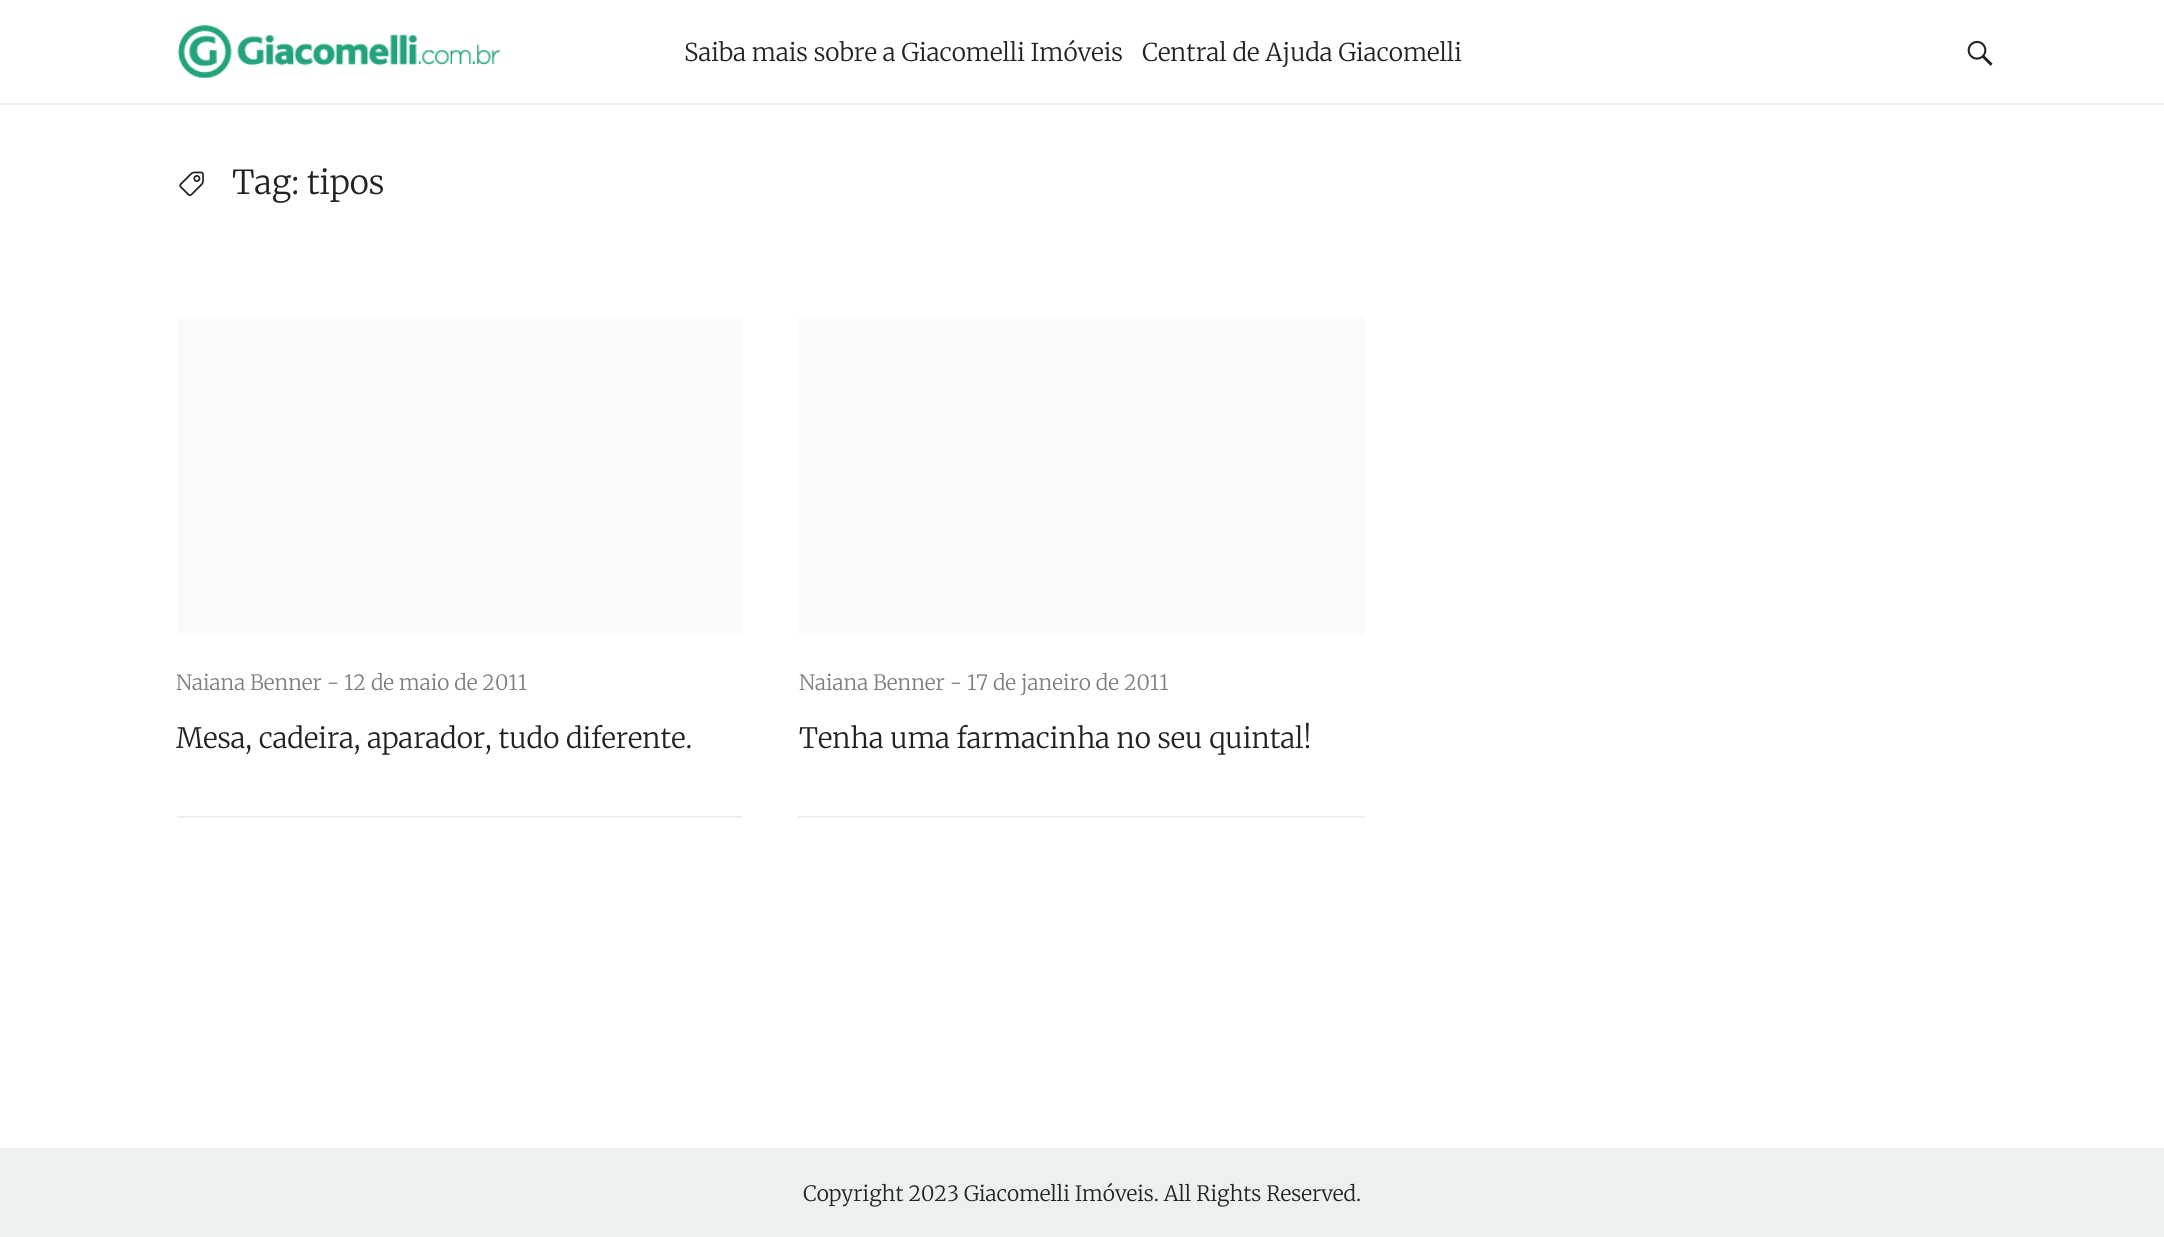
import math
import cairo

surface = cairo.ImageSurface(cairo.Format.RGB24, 2164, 1237)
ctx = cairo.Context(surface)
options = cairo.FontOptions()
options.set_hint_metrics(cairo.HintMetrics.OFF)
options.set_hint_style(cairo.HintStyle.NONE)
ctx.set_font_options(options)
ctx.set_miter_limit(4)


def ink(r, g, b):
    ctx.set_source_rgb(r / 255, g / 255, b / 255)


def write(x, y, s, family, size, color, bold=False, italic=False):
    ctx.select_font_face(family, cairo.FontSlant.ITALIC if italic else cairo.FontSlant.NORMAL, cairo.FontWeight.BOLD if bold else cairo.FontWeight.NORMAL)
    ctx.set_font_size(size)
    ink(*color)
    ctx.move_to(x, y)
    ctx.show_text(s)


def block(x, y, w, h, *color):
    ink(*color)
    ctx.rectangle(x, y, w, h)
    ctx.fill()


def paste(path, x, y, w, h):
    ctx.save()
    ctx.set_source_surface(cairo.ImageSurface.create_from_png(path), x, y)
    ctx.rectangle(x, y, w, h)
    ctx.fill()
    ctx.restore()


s1 = dict(family="Merriweather Light", size=24.5, color=(34, 34, 34))
s2 = dict(family="Merriweather Light", size=33, color=(34, 34, 34))
s3 = dict(family="Merriweather Light", size=21, color=(126, 126, 126))
s4 = dict(family="Merriweather Light", size=28, color=(34, 34, 34))
s5 = dict(family="Merriweather Light", size=21, color=(34, 34, 34))

ink(255, 255, 255)
ctx.paint()
block(0, 103, 2164, 2, 236, 240, 241)
paste("pic1.png", 177, 25, 324, 54)
write(684, 61, "Saiba mais sobre a Giacomelli Imóveis", **s1)
write(1142, 61, "Central de Ajuda Giacomelli", **s1)
paste("pic2.png", 1967, 40, 26, 26)
paste("pic3.png", 179, 171, 25, 26)
ctx.save()
ctx.rectangle(233, 161, 1757, 44)
ctx.clip()
write(232, 194, "Tag:", **s2)
ctx.restore()
write(307, 194, "tipos", **s2)
block(177, 816, 565, 2, 236, 240, 241)
block(177, 317, 565, 318, 250, 250, 250)
write(176, 690, "Naiana Benner - 12 de maio de 2011", **s3)
write(176, 748, "Mesa, cadeira, aparador, tudo diferente.", **s4)
block(798, 816, 567, 2, 236, 240, 241)
block(798, 317, 567, 318, 250, 250, 250)
write(799, 690, "Naiana Benner - 17 de janeiro de 2011", **s3)
write(799, 748, "Tenha uma farmacinha no seu quintal!", **s4)
block(0, 1148, 2164, 89, 236, 240, 241)
write(803, 1201, "Copyright 2023 Giacomelli Imóveis. All Rights Reserved.", **s5)
surface.write_to_png("screenshot.png")
